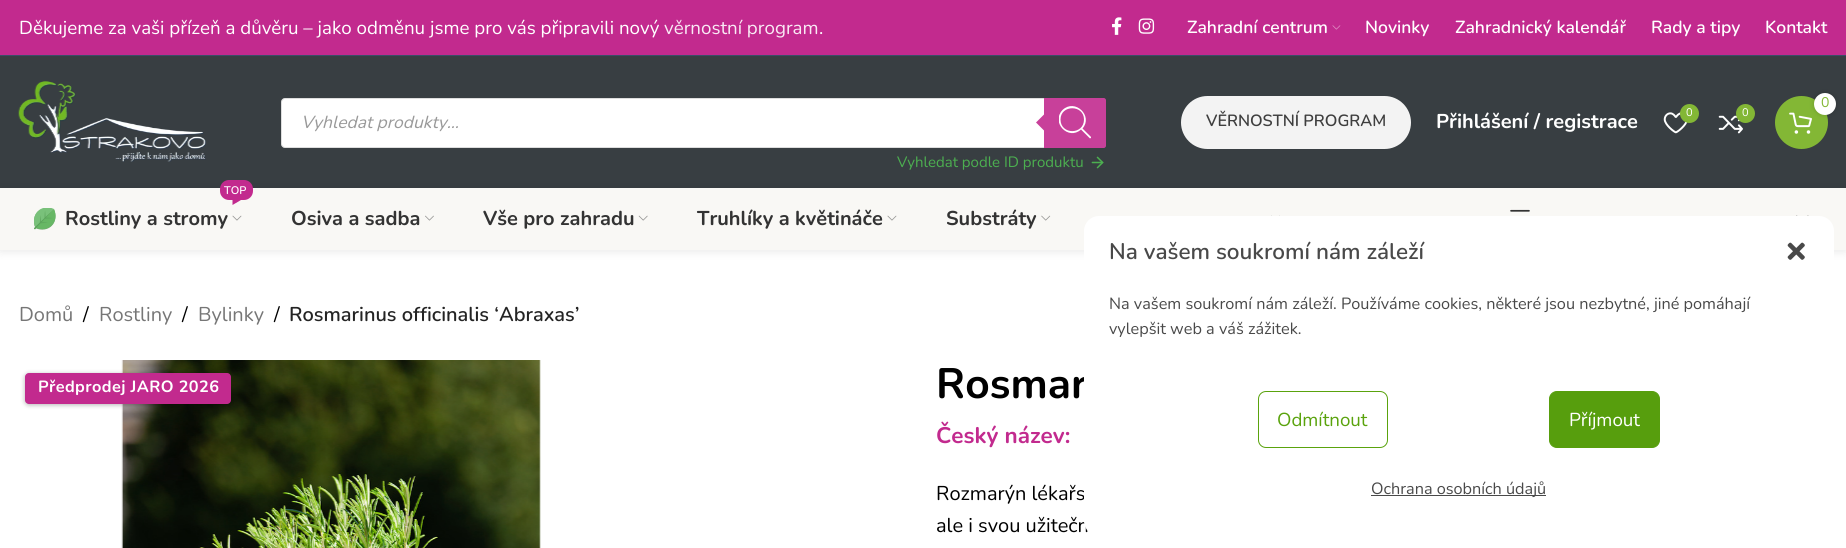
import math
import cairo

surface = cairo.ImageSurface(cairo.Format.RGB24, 1846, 548)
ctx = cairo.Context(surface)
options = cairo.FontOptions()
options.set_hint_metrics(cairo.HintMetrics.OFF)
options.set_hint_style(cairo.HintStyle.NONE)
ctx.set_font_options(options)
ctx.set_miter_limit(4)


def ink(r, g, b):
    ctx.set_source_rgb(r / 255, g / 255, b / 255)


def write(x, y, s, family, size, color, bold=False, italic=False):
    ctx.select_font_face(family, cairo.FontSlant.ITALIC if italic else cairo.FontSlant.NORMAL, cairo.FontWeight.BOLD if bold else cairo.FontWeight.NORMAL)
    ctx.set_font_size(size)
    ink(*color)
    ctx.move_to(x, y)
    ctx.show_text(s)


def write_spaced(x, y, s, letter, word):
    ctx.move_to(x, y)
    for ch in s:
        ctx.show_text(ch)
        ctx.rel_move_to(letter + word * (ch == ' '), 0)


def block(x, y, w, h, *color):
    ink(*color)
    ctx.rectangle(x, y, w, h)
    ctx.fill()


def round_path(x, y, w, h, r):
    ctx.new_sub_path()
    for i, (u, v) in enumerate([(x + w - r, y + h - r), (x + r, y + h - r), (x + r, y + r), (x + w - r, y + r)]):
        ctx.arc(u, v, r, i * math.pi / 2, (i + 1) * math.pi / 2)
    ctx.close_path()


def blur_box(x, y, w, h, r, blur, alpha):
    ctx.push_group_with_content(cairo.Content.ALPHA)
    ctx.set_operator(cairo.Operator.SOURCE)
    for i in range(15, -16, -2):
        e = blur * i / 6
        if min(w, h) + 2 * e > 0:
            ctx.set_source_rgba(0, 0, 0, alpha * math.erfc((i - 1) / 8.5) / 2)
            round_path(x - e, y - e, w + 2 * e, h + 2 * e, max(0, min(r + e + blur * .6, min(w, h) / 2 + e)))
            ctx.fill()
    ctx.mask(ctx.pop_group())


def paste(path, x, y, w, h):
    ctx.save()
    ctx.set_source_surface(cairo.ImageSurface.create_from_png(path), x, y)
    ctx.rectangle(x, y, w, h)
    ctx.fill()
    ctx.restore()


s1 = dict(family="Nunito", size=18.75, color=(255, 255, 255))
s2 = dict(family="Nunito", size=18.75, color=(249, 234, 244))
s3 = dict(family="Nunito SemiBold", size=17.5, color=(255, 255, 255))
s4 = dict(family="Nunito", size=17.5, color=(153, 153, 153), italic=True)
s5 = dict(family="Nunito", size=15, color=(76, 175, 80))
s6 = dict(family="Nunito", size=14, color=(131, 183, 53))
s7 = dict(family="Nunito SemiBold", size=16.25, color=(62, 62, 62))
s8 = dict(family="Nunito", size=20, color=(255, 255, 255), bold=True)
s9 = dict(family="Nunito", size=11, color=(255, 255, 255))
s10 = dict(family="Nunito SemiBold", size=11, color=(255, 255, 255))
s11 = dict(family="Nunito", size=20, color=(51, 51, 51), bold=True)
s12 = dict(family="Nunito", size=20, color=(118, 118, 118))
s13 = dict(family="Nunito", size=20, color=(0, 0, 0))
s14 = dict(family="Nunito SemiBold", size=20, color=(36, 36, 36))
s15 = dict(family="Nunito", size=42.5, color=(0, 0, 0), bold=True)
s16 = dict(family="Nunito", size=22.5, color=(194, 42, 142), bold=True)
s17 = dict(family="Nunito SemiBold", size=22.5, color=(73, 73, 73))
s18 = dict(family="Nunito", size=16.25, color=(73, 73, 73))
s19 = dict(family="Nunito", size=18.75, color=(90, 163, 13))

ink(255, 255, 255)
ctx.paint()
block(0, 0, 1846, 55, 194, 42, 142)
block(0, 55, 1846, 1, 58, 77, 105)
write(19, 34, "Děkujeme za vaši přízeň a důvěru – jako odměnu jsme pro vás připravili nový", **s1)
write(664, 34, "věrnostní program", **s2)
write(819, 34, ".", **s1)
paste("pic1.png", 1112, 17, 10, 18)
paste("pic2.png", 1138, 18, 17, 16)
write(1187, 33, "Zahradní centrum", **s3)
paste("pic3.png", 1332, 25, 9, 5)
write(1365, 33, "Novinky", **s3)
write(1455, 33, "Zahradnický kalendář", **s3)
write(1651, 33, "Rady a tipy", **s3)
write(1765, 33, "Kontakt", **s3)
block(0, 56, 1846, 132, 56, 62, 66)
paste("pic4.png", 18, 81, 188, 81)
ink(255, 255, 255)
round_path(281.5, 98.5, 824, 49, 3.5)
ctx.fill_preserve()
ink(221, 221, 221)
ctx.set_line_width(1)
ctx.stroke()
write(301, 128, "Vyhledat produkty...", **s4)
ink(200, 64, 154)
ctx.new_path()
ctx.move_to(1044, 98)
ctx.line_to(1103.5, 98)
ctx.curve_to(1105, 98, 1106, 99, 1106, 100.5)
ctx.line_to(1106, 145.5)
ctx.curve_to(1106, 147, 1105, 148, 1103.5, 148)
ctx.line_to(1044, 148)
ctx.close_path()
ctx.fill()
ctx.new_path()
ctx.move_to(1046, 112.5)
ctx.line_to(1046, 132.5)
ctx.line_to(1036, 122.5)
ctx.close_path()
ctx.fill()
ctx.save()
ctx.rectangle(1059, 106, 32, 33)
ctx.clip()
ink(255, 255, 255)
ctx.new_path()
ctx.move_to(1091.5, 137.5)
ctx.line_to(1082.5, 128.5)
ctx.curve_to(1093.5, 116, 1075, 98, 1062.5, 110)
ctx.curve_to(1050.5, 122.5, 1068.5, 141, 1081, 129.5)
ctx.line_to(1090, 138.5)
ctx.close_path()
ctx.move_to(1060.5, 119.5)
ctx.curve_to(1060.5, 104.5, 1084, 104.5, 1084, 119.5)
ctx.curve_to(1084, 135, 1060.5, 135, 1060.5, 119.5)
ctx.close_path()
ctx.fill()
ctx.restore()
write(897, 167, "Vyhledat podle ID produktu", **s5)
paste("pic5.png", 1091, 156, 13, 13)
ink(131, 183, 53)
ctx.arc(1801.5, 122.5, 26.5, 0, 2 * math.pi)
ctx.fill()
paste("pic6.png", 1789, 112, 23, 22)
ink(0, 0, 0)
blur_box(1814, 93, 22, 22, 11, 2.5, 0.17)
ink(255, 255, 255)
ctx.arc(1825, 104, 11, 0, 2 * math.pi)
ctx.fill()
write(1821, 107, "0", **s6)
ink(243, 243, 243)
round_path(1181, 96, 230, 53, 26.5)
ctx.fill()
write(1206, 126, "VĚRNOSTNÍ PROGRAM", **s7)
write(1436, 128, "Přihlášení / registrace", **s8)
paste("pic7.png", 1663, 112, 25, 22)
ink(131, 183, 53)
ctx.arc(1689.5, 113.5, 9.5, 0, 2 * math.pi)
ctx.fill()
write(1686, 116, "0", **s9)
paste("pic8.png", 1718, 115, 25, 19)
ink(131, 183, 53)
ctx.arc(1745.5, 113.5, 9.5, 0, 2 * math.pi)
ctx.fill()
write(1742, 116, "0", **s9)
ink(0, 0, 0)
blur_box(0, 189, 1846, 62, 0, 5, 0.1)
block(0, 188, 1846, 62, 249, 248, 245)
ink(194, 42, 142)
round_path(220, 180, 33, 20, 9)
ctx.fill()
write(224, 194, "TOP", **s10)
ink(194, 42, 142)
ctx.new_path()
ctx.move_to(232.5, 200)
ctx.line_to(241, 200)
ctx.line_to(232.5, 205)
ctx.close_path()
ctx.fill()
paste("pic9.png", 34, 208, 22, 22)
write(65, 225, "Rostliny a stromy", **s11)
paste("pic10.png", 232, 215, 10, 6)
write(291, 225, "Osiva a sadba", **s11)
paste("pic11.png", 425, 215, 9, 6)
write(483, 225, "Vše pro zahradu", **s11)
paste("pic12.png", 638, 215, 10, 6)
write(697, 225, "Truhlíky a květináče", **s11)
paste("pic10.png", 887, 215, 10, 6)
write(946, 225, "Substráty", **s11)
paste("pic13.png", 1041, 215, 10, 6)
paste("pic14.png", 1271, 215, 9, 1)
paste("pic15.png", 1510, 209, 20, 3)
paste("pic16.png", 1796, 215, 13, 1)
write(19, 321, "Domů", **s12)
write(83, 321, "/", **s13)
write(99, 321, "Rostliny", **s12)
write(182, 321, "/", **s13)
write(198, 321, "Bylinky", **s12)
write(274, 321, "/", **s13)
write(289, 321, "Rosmarinus officinalis ‘Abraxas’", **s14)
paste("pic17.png", 121, 360, 420, 188)
ink(0, 0, 0)
blur_box(25, 374, 206, 31, 4, 2.5, 0.3)
ink(194, 42, 142)
round_path(25, 373, 206, 31, 4)
ctx.fill()
ctx.select_font_face("Nunito", cairo.FontSlant.NORMAL, cairo.FontWeight.BOLD)
ctx.set_font_size(16.25)
ink(255, 255, 255)
write_spaced(38, 392, "Předprodej JARO 2026", 0.4, 0)
write(936, 398, "Rosmar", **s15)
write(936, 443, "Český název:", **s16)
write(936, 500, "Rozmarýn lékařs", **s13)
write(936, 532, "ale i svou užitečn", **s13)
ink(255, 255, 255)
round_path(1084, 216, 750, 320, 15)
ctx.fill()
write(1109, 259, "Na vašem soukromí nám záleží", **s17)
paste("pic18.png", 1787, 242, 18, 18)
write(1109, 309, "Na vašem soukromí nám záleží. Používáme cookies, některé jsou nezbytné, jiné pomáhají", **s18)
write(1109, 334, "vylepšit web a váš zážitek.", **s18)
round_path(1258.5, 391.5, 129, 56, 7.5)
ink(90, 163, 13)
ctx.stroke()
write(1277, 426, "Odmítnout", **s19)
ink(87, 158, 13)
round_path(1549.5, 391.5, 110, 56, 7.5)
ctx.fill_preserve()
ctx.stroke()
write(1569, 426, "Příjmout", **s1)
block(1371, 495, 175, 1, 73, 73, 73)
write(1371, 494, "Ochrana osobních údajů", **s18)
surface.write_to_png("screenshot.png")
